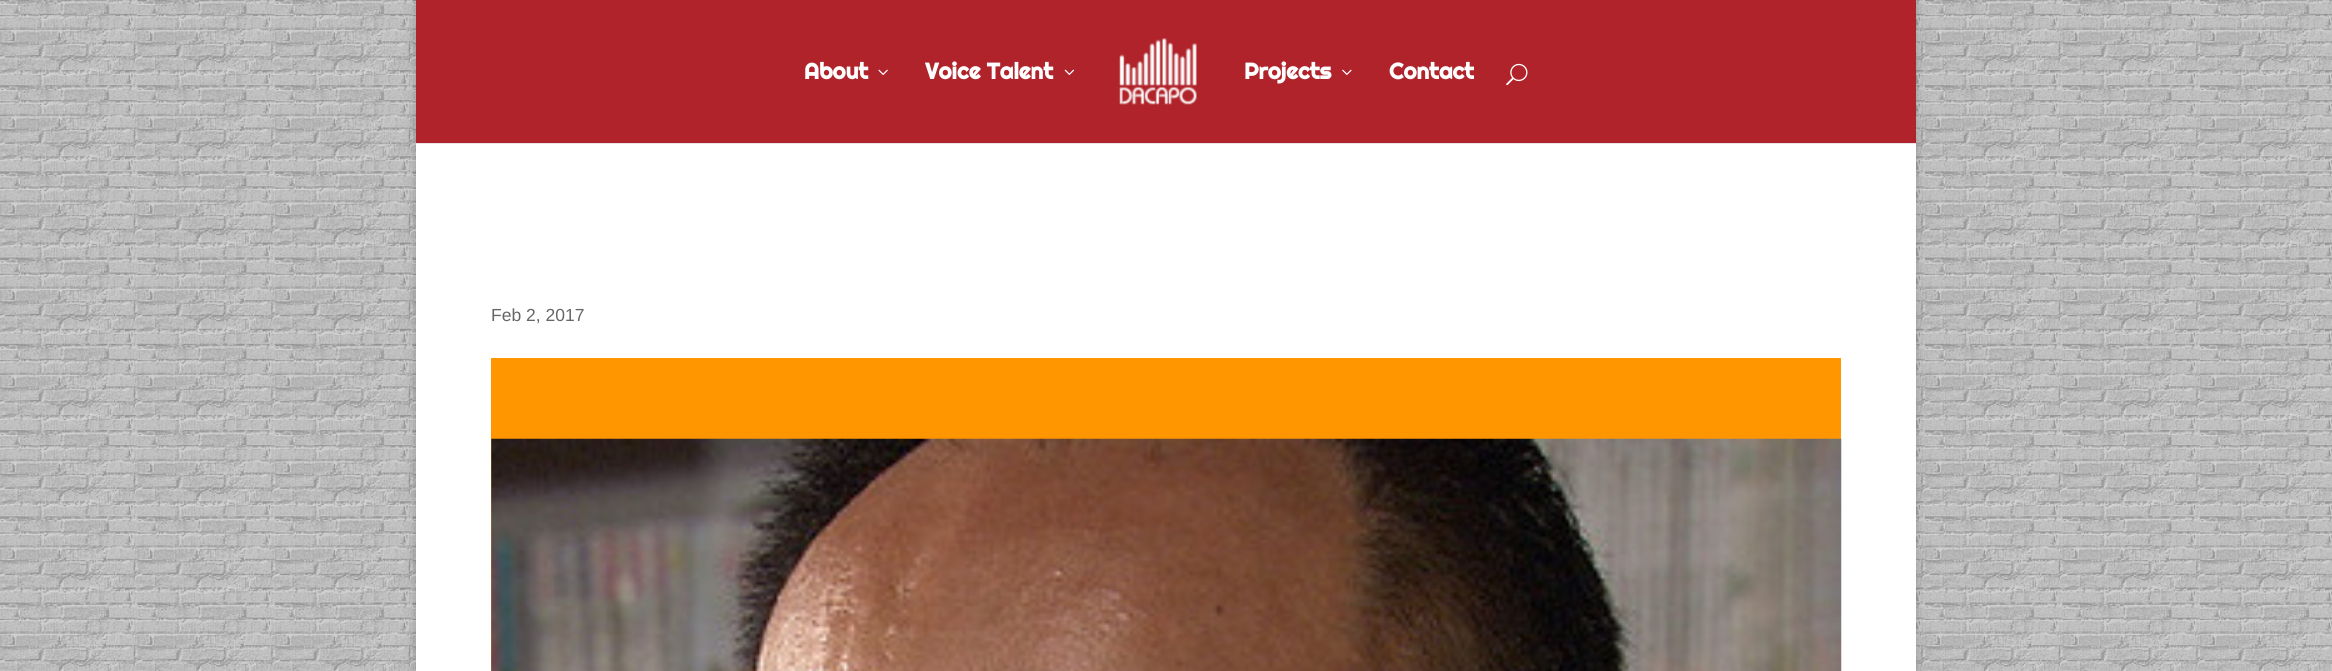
import math
import cairo

surface = cairo.ImageSurface(cairo.Format.RGB24, 2332, 671)
ctx = cairo.Context(surface)
options = cairo.FontOptions()
options.set_hint_metrics(cairo.HintMetrics.OFF)
options.set_hint_style(cairo.HintStyle.NONE)
ctx.set_font_options(options)
ctx.set_miter_limit(4)


def ink(r, g, b):
    ctx.set_source_rgb(r / 255, g / 255, b / 255)


def write(x, y, s, family, size, color, bold=False, italic=False):
    ctx.select_font_face(family, cairo.FontSlant.ITALIC if italic else cairo.FontSlant.NORMAL, cairo.FontWeight.BOLD if bold else cairo.FontWeight.NORMAL)
    ctx.set_font_size(size)
    ink(*color)
    ctx.move_to(x, y)
    ctx.show_text(s)


def block(x, y, w, h, *color):
    ink(*color)
    ctx.rectangle(x, y, w, h)
    ctx.fill()


def round_path(x, y, w, h, r):
    ctx.new_sub_path()
    for i, (u, v) in enumerate([(x + w - r, y + h - r), (x + r, y + h - r), (x + r, y + r), (x + w - r, y + r)]):
        ctx.arc(u, v, r, i * math.pi / 2, (i + 1) * math.pi / 2)
    ctx.close_path()


def blur_box(x, y, w, h, r, blur, alpha):
    ctx.push_group_with_content(cairo.Content.ALPHA)
    ctx.set_operator(cairo.Operator.SOURCE)
    for i in range(15, -16, -2):
        e = blur * i / 6
        if min(w, h) + 2 * e > 0:
            ctx.set_source_rgba(0, 0, 0, alpha * math.erfc((i - 1) / 8.5) / 2)
            round_path(x - e, y - e, w + 2 * e, h + 2 * e, max(0, min(r + e + blur * .6, min(w, h) / 2 + e)))
            ctx.fill()
    ctx.mask(ctx.pop_group())


def paste(path, x, y, w, h):
    ctx.save()
    ctx.set_source_surface(cairo.ImageSurface.create_from_png(path), x, y)
    ctx.rectangle(x, y, w, h)
    ctx.fill()
    ctx.restore()


s1 = dict(family="Righteous", size=22.5, color=(255, 255, 255), bold=True)
s2 = dict(family="Liberation Sans", size=17.5, color=(102, 102, 102))

ink(255, 255, 255)
ctx.paint()
paste("pic1.png", 0, 0, 2332, 671)
ink(0, 0, 0)
blur_box(416, -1, 1500, 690, 0, 6, 0.2)
ink(230, 230, 230)
ctx.new_path()
ctx.move_to(416, 1)
ctx.line_to(416, 144)
ctx.line_to(1916, 144)
ctx.line_to(1916, 142)
ctx.line_to(416, 142)
ctx.close_path()
ctx.fill()
block(416, 0, 1500, 143, 176, 35, 42)
write(804, 79, "About", **s1)
paste("pic2.png", 878, 69, 10, 6)
write(925, 79, "Voice Talent", **s1)
paste("pic3.png", 1064, 69, 10, 6)
paste("pic4.png", 1119, 38, 78, 67)
write(1244, 79, "Projects", **s1)
paste("pic5.png", 1342, 69, 10, 6)
write(1389, 79, "Contact", **s1)
paste("pic6.png", 1506, 63, 22, 23)
block(416, 144, 1500, 527, 255, 255, 255)
write(491, 321, "Feb 2, 2017", **s2)
block(491, 358, 1350, 313, 255, 150, 0)
paste("pic7.png", 491, 438, 1351, 233)
surface.write_to_png("screenshot.png")
